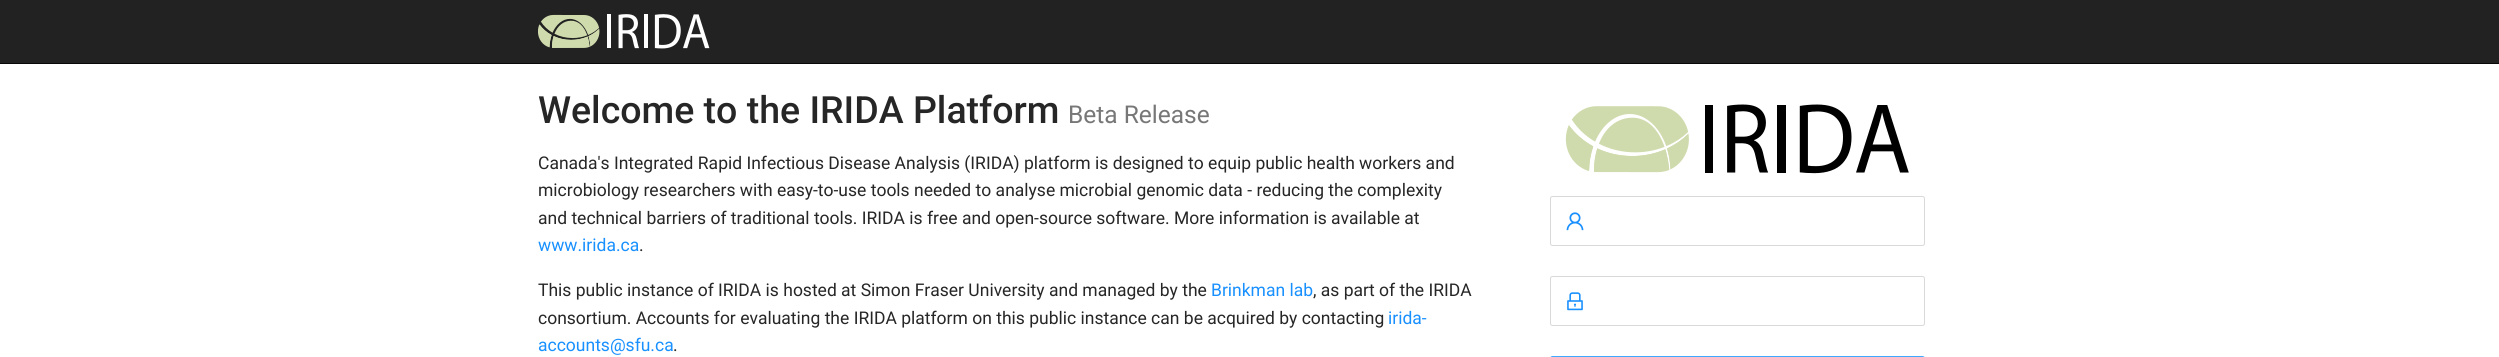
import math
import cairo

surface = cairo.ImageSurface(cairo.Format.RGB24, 2499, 357)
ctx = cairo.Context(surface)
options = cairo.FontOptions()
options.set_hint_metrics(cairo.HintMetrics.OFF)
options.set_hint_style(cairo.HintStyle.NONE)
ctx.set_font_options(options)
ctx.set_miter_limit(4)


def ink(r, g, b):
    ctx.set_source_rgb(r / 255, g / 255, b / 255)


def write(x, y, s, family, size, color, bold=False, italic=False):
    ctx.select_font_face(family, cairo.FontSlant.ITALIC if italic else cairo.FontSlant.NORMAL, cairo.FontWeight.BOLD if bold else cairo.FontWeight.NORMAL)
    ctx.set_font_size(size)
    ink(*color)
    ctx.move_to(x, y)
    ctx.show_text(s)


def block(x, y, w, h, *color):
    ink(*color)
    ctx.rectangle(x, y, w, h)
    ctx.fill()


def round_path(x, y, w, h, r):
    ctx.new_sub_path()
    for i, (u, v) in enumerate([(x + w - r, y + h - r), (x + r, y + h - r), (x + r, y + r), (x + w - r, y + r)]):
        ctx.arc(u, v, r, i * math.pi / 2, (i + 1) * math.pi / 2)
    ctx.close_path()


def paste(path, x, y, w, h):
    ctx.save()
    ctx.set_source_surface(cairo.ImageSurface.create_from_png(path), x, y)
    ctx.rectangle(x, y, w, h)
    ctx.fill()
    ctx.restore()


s1 = dict(family="Roboto Medium", size=37.5, color=(38, 38, 38))
s2 = dict(family="Roboto", size=24.5, color=(119, 119, 119))
s3 = dict(family="Roboto", size=17.5, color=(38, 38, 38))
s4 = dict(family="Roboto", size=17.5, color=(24, 144, 255))

ink(255, 255, 255)
ctx.paint()
block(0, 0, 2499, 63, 34, 34, 34)
block(0, 63, 2499, 1, 8, 8, 8)
paste("pic1.png", 538, 14, 172, 35)
write(538, 123, "Welcome to the IRIDA Platform", **s1)
write(1068, 123, "Beta Release", **s2)
write(538, 169, "Canada's Integrated Rapid Infectious Disease Analysis (IRIDA) platform is designed to equip public health workers and", **s3)
write(538, 196, "microbiology researchers with easy-to-use tools needed to analyse microbial genomic data - reducing the complexity", **s3)
write(538, 224, "and technical barriers of traditional tools. IRIDA is free and open-source software. More information is available at", **s3)
write(538, 251, "www.irida.ca", **s4)
write(639, 251, ".", **s3)
write(538, 296, "This public instance of IRIDA is hosted at Simon Fraser University and managed by the", **s3)
write(1211, 296, "Brinkman lab", **s4)
write(1313, 296, ", as part of the IRIDA", **s3)
write(538, 324, "consortium. Accounts for evaluating the IRIDA platform on this public instance can be acquired by contacting", **s3)
write(1388, 324, "irida-", **s4)
write(538, 351, "accounts@sfu.ca", **s4)
write(673, 351, ".", **s3)
paste("pic2.png", 1565, 104, 344, 70)
round_path(1550.5, 196.5, 374, 49, 2)
ink(217, 217, 217)
ctx.set_line_width(1)
ctx.stroke()
paste("pic3.png", 1566, 212, 18, 19)
round_path(1550.5, 276.5, 374, 49, 2)
ctx.stroke()
paste("pic4.png", 1567, 292, 16, 19)
round_path(1550.5, 356.5, 374, 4, 2)
ink(64, 169, 255)
ctx.stroke()
surface.write_to_png("screenshot.png")
